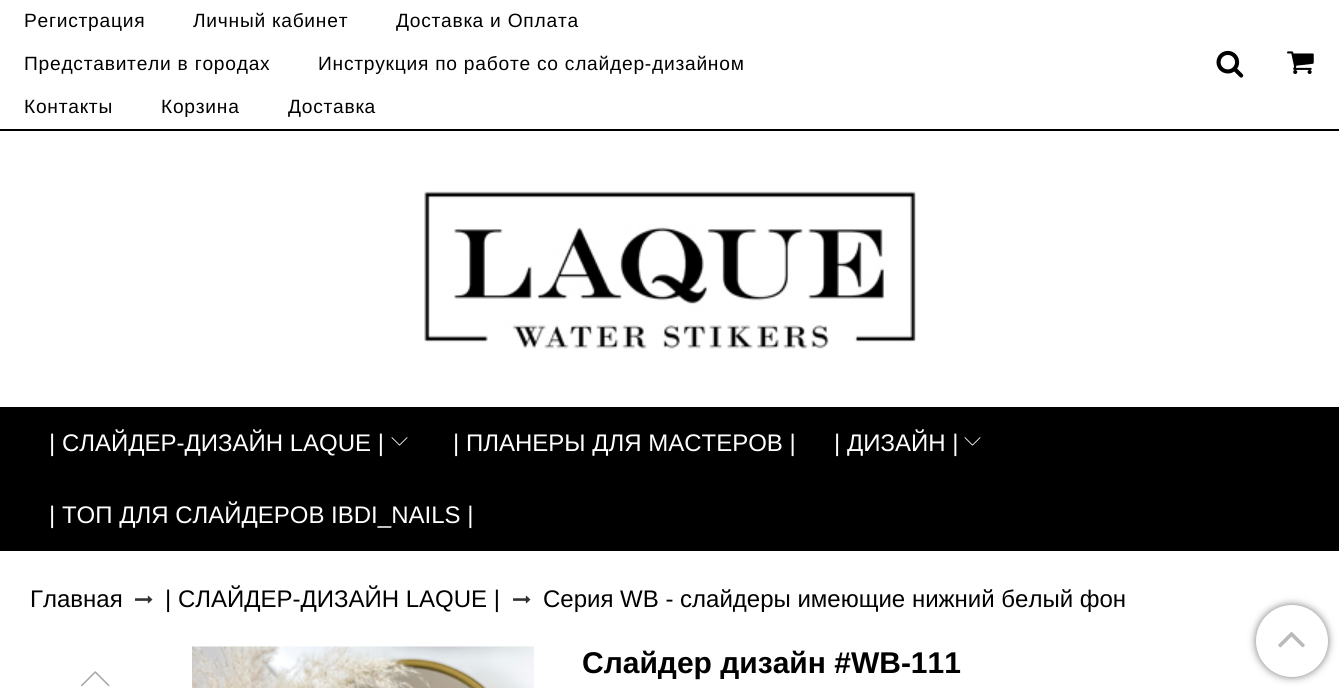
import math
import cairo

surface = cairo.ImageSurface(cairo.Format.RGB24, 1339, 688)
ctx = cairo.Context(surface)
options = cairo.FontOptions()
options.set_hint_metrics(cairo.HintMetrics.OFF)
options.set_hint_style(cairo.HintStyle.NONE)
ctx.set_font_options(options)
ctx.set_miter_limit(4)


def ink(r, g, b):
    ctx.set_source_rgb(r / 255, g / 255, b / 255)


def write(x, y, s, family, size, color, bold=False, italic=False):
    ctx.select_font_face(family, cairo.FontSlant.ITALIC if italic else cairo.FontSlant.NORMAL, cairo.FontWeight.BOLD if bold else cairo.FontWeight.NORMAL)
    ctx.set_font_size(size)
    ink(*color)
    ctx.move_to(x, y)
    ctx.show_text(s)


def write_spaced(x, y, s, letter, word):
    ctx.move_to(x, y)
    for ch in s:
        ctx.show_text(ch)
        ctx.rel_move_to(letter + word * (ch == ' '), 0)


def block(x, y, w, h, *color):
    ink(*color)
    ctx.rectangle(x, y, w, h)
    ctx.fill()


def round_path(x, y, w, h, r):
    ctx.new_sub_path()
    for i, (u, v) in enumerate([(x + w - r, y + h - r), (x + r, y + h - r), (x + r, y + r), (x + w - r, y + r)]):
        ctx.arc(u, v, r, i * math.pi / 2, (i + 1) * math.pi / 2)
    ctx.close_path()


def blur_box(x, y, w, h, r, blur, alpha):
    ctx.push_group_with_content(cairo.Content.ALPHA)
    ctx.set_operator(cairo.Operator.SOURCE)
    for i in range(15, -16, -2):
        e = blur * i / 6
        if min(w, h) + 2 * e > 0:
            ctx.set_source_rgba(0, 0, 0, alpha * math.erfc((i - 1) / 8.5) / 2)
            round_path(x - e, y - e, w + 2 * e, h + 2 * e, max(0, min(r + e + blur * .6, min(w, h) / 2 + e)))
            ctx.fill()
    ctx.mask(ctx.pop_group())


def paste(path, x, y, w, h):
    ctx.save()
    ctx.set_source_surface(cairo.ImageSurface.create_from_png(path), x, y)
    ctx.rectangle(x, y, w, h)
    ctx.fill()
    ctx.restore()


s1 = dict(family="Liberation Sans", size=24, color=(255, 255, 255))
s2 = dict(family="Liberation Sans", size=24, color=(0, 0, 0))
s3 = dict(family="Liberation Sans", size=30, color=(0, 0, 0), bold=True)

ink(255, 255, 255)
ctx.paint()
block(0, 129, 1339, 2, 0, 0, 0)
ctx.select_font_face("Liberation Sans")
ctx.set_font_size(19.2)
write_spaced(24, 27, "Регистрация", 0.75, 0)
write_spaced(193, 27, "Личный кабинет", 0.75, 0)
write_spaced(396, 27, "Доставка и Оплата", 0.75, 0)
write_spaced(24, 70, "Представители в городах", 0.75, 0)
write_spaced(318, 70, "Инструкция по работе со слайдер-дизайном", 0.75, 0)
write_spaced(24, 113, "Контакты", 0.75, 0)
write_spaced(161, 113, "Корзина", 0.75, 0)
write_spaced(288, 113, "Доставка", 0.75, 0)
paste("pic1.png", 1216, 50, 28, 28)
paste("pic2.png", 1287, 51, 27, 23)
paste("pic3.png", 424, 191, 492, 158)
block(0, 407, 1339, 144, 0, 0, 0)
write(49, 451, "| СЛАЙДЕР-ДИЗАЙН LAQUE |", **s1)
paste("pic4.png", 391, 437, 17, 9)
write(453, 451, "| ПЛАНЕРЫ ДЛЯ МАСТЕРОВ |", **s1)
write(834, 451, "| ДИЗАЙН |", **s1)
paste("pic4.png", 964, 437, 17, 9)
write(49, 523, "| ТОП ДЛЯ СЛАЙДЕРОВ IBDI_NAILS |", **s1)
write(30, 607, "Главная", **s2)
paste("pic5.png", 135, 595, 18, 9)
write(165, 607, "| СЛАЙДЕР-ДИЗАЙН LAQUE |", **s2)
paste("pic5.png", 513, 595, 18, 9)
write(543, 607, "Серия WB - слайдеры имеющие нижний белый фон", **s2)
paste("pic6.png", 81, 671, 29, 16)
paste("pic7.png", 192, 646, 342, 42)
write(582, 673, "Cлайдер дизайн #WB-111", **s3)
ink(119, 119, 119)
blur_box(1256, 605, 72, 72, 36, 4, 1)
ink(255, 255, 255)
ctx.arc(1292, 641, 36, 0, 2 * math.pi)
ctx.fill()
paste("pic8.png", 1278, 631, 27, 17)
surface.write_to_png("screenshot.png")
